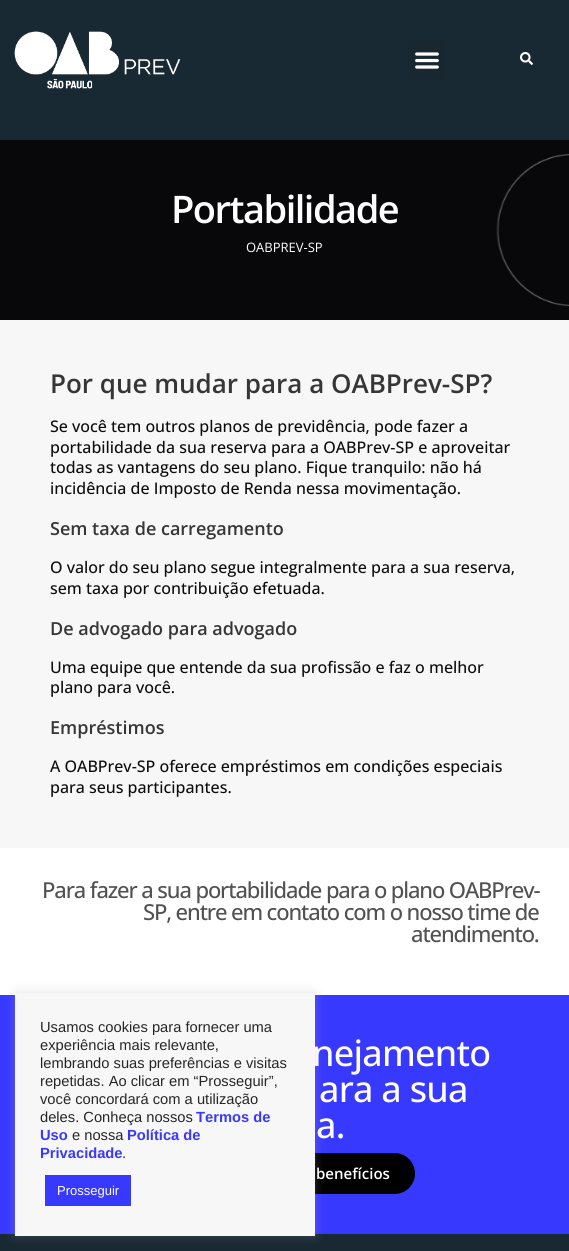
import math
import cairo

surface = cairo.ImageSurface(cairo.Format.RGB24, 569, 1251)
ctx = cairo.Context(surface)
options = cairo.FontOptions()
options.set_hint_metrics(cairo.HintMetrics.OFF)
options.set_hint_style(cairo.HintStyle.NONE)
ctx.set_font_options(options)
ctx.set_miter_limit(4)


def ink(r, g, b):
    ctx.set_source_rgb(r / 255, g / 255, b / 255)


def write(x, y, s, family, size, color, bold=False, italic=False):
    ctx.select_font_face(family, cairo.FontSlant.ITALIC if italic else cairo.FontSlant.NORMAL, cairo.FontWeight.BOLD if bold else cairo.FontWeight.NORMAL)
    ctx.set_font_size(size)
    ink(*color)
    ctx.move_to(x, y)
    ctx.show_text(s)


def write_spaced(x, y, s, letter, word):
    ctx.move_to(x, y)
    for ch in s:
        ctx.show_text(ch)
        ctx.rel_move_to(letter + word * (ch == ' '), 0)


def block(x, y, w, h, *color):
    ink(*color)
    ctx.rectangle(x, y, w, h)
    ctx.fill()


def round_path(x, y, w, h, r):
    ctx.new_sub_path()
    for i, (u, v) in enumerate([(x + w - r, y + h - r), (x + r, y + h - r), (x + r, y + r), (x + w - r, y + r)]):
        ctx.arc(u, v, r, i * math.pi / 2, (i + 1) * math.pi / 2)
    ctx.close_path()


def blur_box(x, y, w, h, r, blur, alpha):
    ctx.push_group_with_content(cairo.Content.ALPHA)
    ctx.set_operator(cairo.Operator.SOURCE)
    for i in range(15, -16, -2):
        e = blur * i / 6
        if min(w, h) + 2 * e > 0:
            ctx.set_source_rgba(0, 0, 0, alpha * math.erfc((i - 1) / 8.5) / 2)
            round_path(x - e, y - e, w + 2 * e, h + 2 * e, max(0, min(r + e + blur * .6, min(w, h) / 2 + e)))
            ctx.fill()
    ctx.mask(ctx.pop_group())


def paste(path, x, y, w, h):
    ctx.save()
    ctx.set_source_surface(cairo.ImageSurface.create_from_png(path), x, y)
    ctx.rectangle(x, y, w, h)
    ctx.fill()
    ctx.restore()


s1 = dict(family="Open Sans", size=13, color=(255, 255, 255))
s2 = dict(family="Open Sans SemiBold", size=26, color=(54, 54, 54))
s3 = dict(family="Open Sans Medium", size=16, color=(12, 12, 12))
s4 = dict(family="Open Sans SemiBold", size=18, color=(54, 54, 54))
s5 = dict(family="Open Sans SemiBold", size=15, color=(255, 255, 255))
s6 = dict(family="Liberation Sans", size=14.7, color=(38, 38, 38))
s7 = dict(family="Liberation Sans", size=14.7, color=(56, 57, 255), bold=True)
s8 = dict(family="Liberation Sans", size=13, color=(255, 255, 255))

ink(255, 255, 255)
ctx.paint()
block(0, 0, 569, 140, 25, 41, 51)
paste("pic1.png", 14, 31, 167, 58)
ink(24, 39, 48)
round_path(407, 40, 39, 39, 3)
ctx.fill()
paste("pic2.png", 415, 52, 24, 17)
paste("pic3.png", 520, 52, 13, 13)
paste("pic4.png", 0, 140, 569, 180)
ctx.select_font_face("Open Sans SemiBold")
ctx.set_font_size(38)
ink(255, 255, 255)
write_spaced(171, 223, "Portabilidade", -1.5, 0)
write(246, 252, "OABPREV-SP", **s1)
block(0, 320, 569, 528, 247, 247, 247)
write(50, 393, "Por que mudar para a OABPrev-SP?", **s2)
write(50, 432, "Se você tem outros planos de previdência, pode fazer a", **s3)
write(50, 453, "portabilidade da sua reserva para a OABPrev-SP e aproveitar", **s3)
write(50, 473, "todas as vantagens do seu plano. Fique tranquilo: não há", **s3)
write(50, 494, "incidência de Imposto de Renda nessa movimentação.", **s3)
write(50, 535, "Sem taxa de carregamento", **s4)
write(50, 573, "O valor do seu plano segue integralmente para a sua reserva,", **s3)
write(50, 594, "sem taxa por contribuição efetuada.", **s3)
write(50, 635, "De advogado para advogado", **s4)
write(50, 673, "Uma equipe que entende da sua profissão e faz o melhor", **s3)
write(50, 693, "plano para você.", **s3)
write(50, 734, "Empréstimos", **s4)
write(50, 772, "A OABPrev-SP oferece empréstimos em condições especiais", **s3)
write(50, 793, "para seus participantes.", **s3)
ctx.set_font_size(22)
ink(81, 81, 81)
write_spaced(42, 898, "Para fazer a sua portabilidade para o plano OABPrev-", -1.1, 0)
write_spaced(143, 920, "SP, entre em contato com o nosso time de", -1.1, 0)
write_spaced(411, 942, "atendimento.", -1.1, 0)
block(0, 995, 569, 239, 56, 57, 255)
ctx.set_font_size(36)
ink(255, 255, 255)
write_spaced(312, 1066, "nejamento", -0.75, 0)
write_spaced(319, 1102, "ara a sua", -0.75, 0)
write_spaced(316, 1138, "a.", -0.75, 0)
ink(0, 0, 0)
round_path(154, 1153, 261, 41, 20.5)
ctx.fill()
write(316, 1179, "benefícios", **s5)
block(0, 1234, 569, 17, 25, 41, 51)
ink(172, 171, 171)
blur_box(15, 992, 300, 243, 0, 5, 0.3)
block(15, 993, 300, 243, 247, 247, 247)
write(40, 1032, "Usamos cookies para fornecer uma", **s6)
write(40, 1050, "experiência mais relevante,", **s6)
write(40, 1068, "lembrando suas preferências e visitas", **s6)
write(40, 1086, "repetidas. Ao clicar em “Prosseguir”,", **s6)
write(40, 1104, "você concordará com a utilização", **s6)
write(40, 1122, "deles. Conheça nossos", **s6)
write(196, 1122, "Termos de", **s7)
write(40, 1140, "Uso", **s7)
write(72, 1140, "e nossa", **s6)
write(127, 1140, "Política de", **s7)
write(40, 1158, "Privacidade", **s7)
write(122, 1158, ".", **s6)
block(45, 1175, 86, 31, 56, 57, 255)
write(57, 1195, "Prosseguir", **s8)
surface.write_to_png("screenshot.png")
